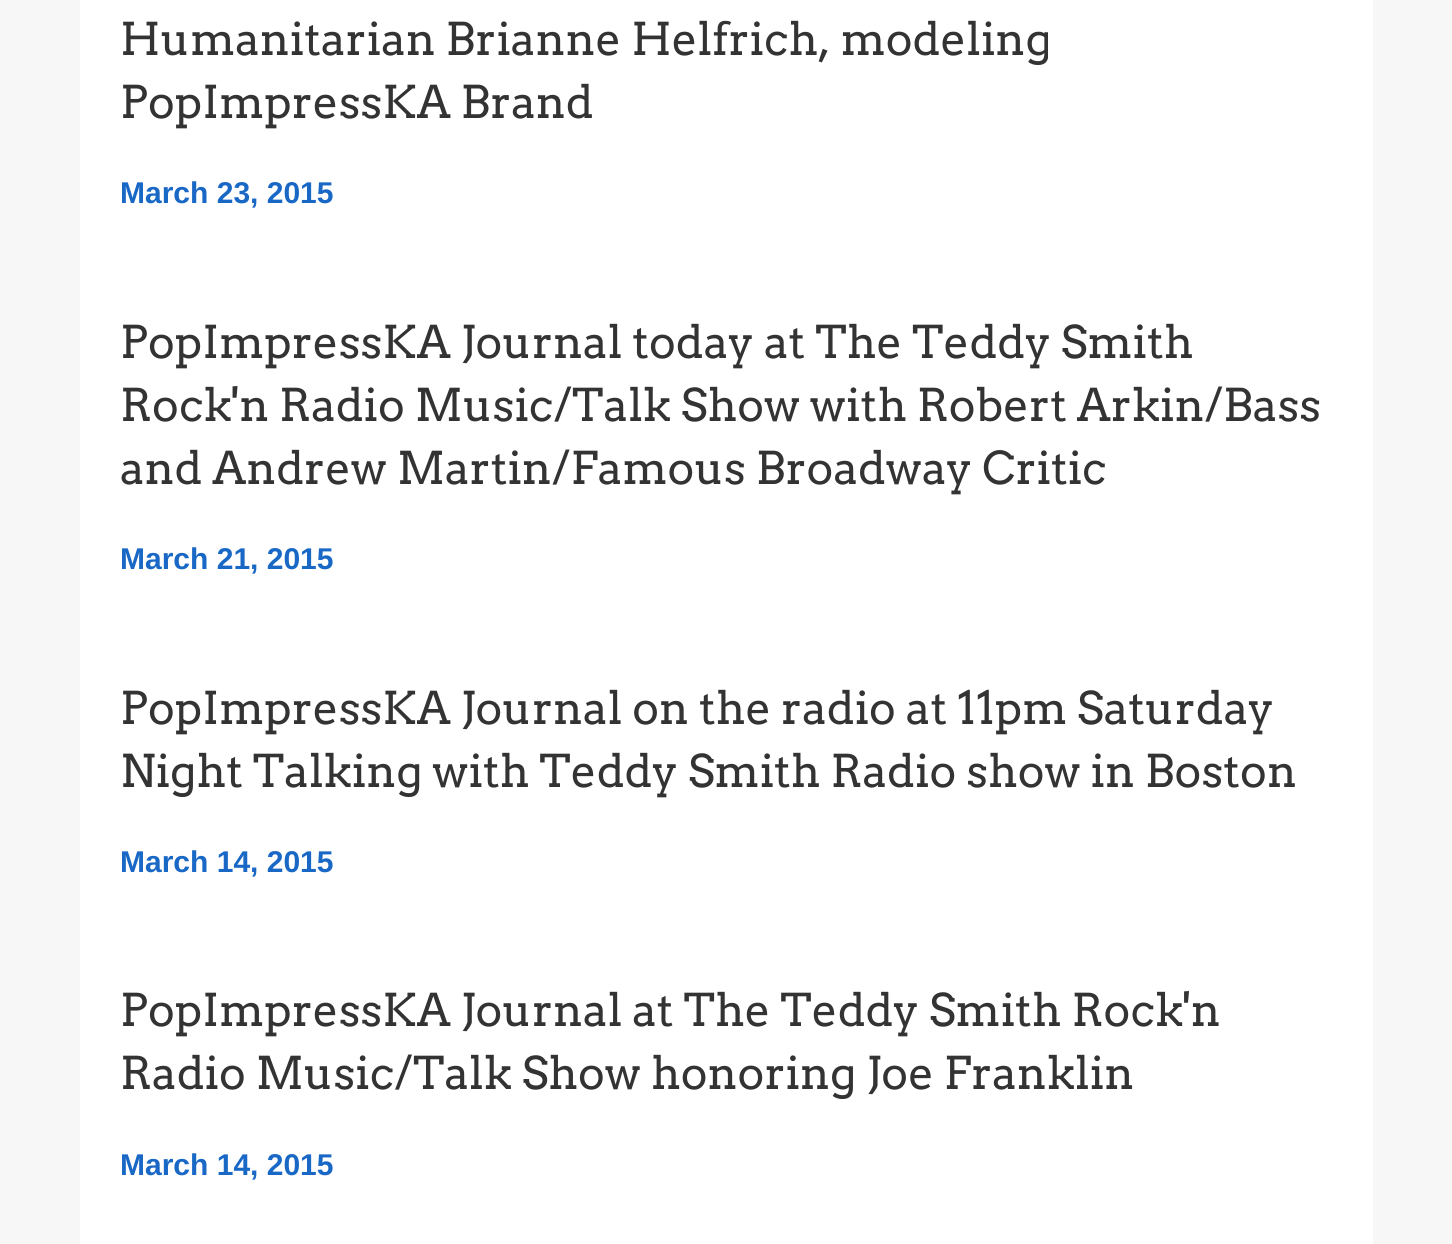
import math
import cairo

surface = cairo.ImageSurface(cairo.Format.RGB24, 1452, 1244)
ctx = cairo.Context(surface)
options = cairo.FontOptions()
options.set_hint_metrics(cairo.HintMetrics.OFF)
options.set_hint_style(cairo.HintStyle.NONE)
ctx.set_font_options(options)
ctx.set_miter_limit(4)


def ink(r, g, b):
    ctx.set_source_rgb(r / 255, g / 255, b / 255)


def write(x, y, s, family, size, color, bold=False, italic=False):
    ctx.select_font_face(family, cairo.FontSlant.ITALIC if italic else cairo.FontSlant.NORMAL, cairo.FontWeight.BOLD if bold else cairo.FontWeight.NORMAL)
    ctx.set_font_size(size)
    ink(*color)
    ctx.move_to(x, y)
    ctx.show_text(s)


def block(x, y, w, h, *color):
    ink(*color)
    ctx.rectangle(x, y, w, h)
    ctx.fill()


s1 = dict(family="Arvo", size=45, color=(51, 51, 51))
s2 = dict(family="Arimo", size=30, color=(25, 104, 198), bold=True)

ink(247, 247, 247)
ctx.paint()
block(80, 0, 1293, 1244, 255, 255, 255)
write(120, 55, "Humanitarian Brianne Helfrich, modeling", **s1)
write(120, 118, "PopImpressKA Brand", **s1)
write(120, 203, "March 23, 2015", **s2)
write(120, 358, "PopImpressKA Journal today at The Teddy Smith", **s1)
write(120, 421, "Rock'n Radio Music/Talk Show with Robert Arkin/Bass", **s1)
write(120, 484, "and Andrew Martin/Famous Broadway Critic", **s1)
write(120, 569, "March 21, 2015", **s2)
write(120, 724, "PopImpressKA Journal on the radio at 11pm Saturday", **s1)
write(120, 787, "Night Talking with Teddy Smith Radio show in Boston", **s1)
write(120, 872, "March 14, 2015", **s2)
write(120, 1026, "PopImpressKA Journal at The Teddy Smith Rock'n", **s1)
write(120, 1089, "Radio Music/Talk Show honoring Joe Franklin", **s1)
write(120, 1175, "March 14, 2015", **s2)
surface.write_to_png("screenshot.png")
